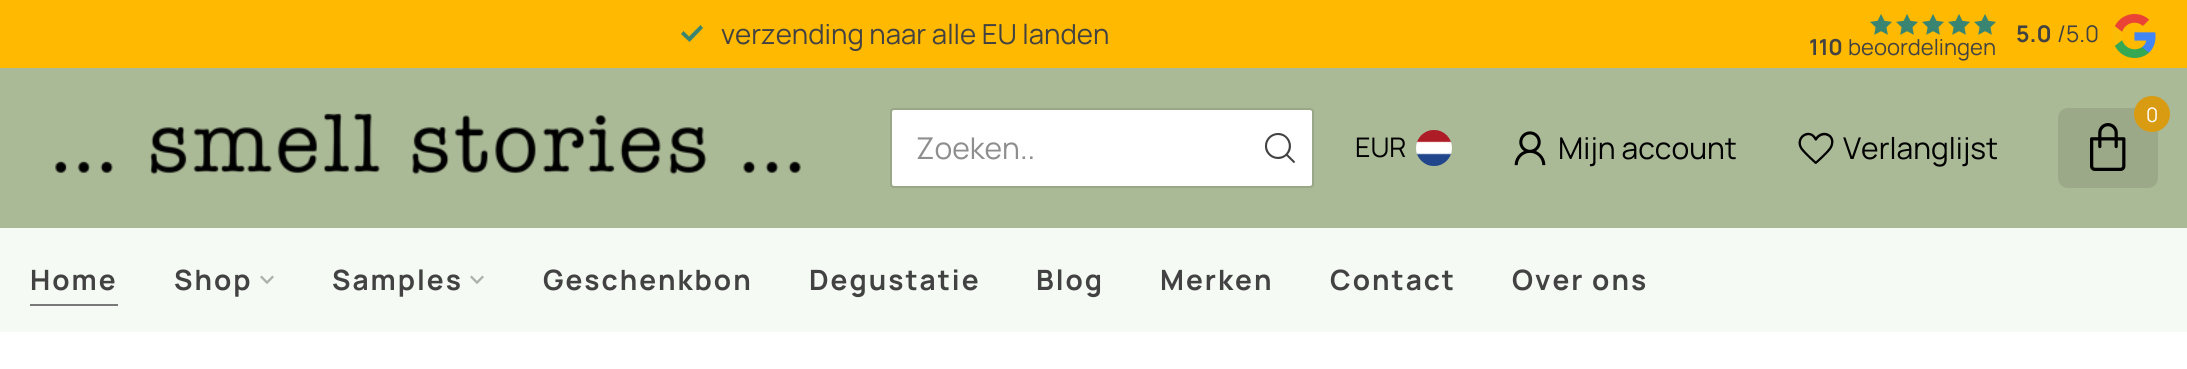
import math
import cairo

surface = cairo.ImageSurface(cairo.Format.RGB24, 2187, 369)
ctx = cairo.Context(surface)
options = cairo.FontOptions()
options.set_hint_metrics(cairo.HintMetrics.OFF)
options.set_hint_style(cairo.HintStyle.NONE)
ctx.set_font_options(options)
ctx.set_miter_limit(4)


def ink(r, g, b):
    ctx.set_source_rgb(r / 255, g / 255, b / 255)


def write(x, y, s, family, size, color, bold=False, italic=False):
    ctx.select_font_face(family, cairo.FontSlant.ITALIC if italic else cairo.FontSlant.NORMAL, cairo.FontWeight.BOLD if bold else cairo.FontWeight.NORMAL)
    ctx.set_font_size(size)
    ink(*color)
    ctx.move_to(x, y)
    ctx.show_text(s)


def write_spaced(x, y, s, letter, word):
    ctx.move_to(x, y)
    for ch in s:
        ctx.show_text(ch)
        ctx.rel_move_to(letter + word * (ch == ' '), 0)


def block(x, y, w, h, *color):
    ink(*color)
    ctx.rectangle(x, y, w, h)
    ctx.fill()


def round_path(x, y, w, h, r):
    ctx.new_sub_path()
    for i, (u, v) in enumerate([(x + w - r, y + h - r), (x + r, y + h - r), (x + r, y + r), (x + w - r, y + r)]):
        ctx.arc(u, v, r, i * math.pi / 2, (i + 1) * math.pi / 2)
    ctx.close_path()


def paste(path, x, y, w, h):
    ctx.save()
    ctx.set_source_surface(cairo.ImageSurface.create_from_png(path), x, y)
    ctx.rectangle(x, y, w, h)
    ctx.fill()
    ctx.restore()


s1 = dict(family="Manrope", size=27.6, color=(66, 66, 66))
s2 = dict(family="Manrope", size=23, color=(66, 66, 66), bold=True)
s3 = dict(family="Manrope", size=23, color=(66, 66, 66))
s4 = dict(family="Manrope", size=22, color=(66, 66, 66), bold=True)
s5 = dict(family="Manrope", size=22, color=(66, 66, 66))
s6 = dict(family="Manrope", size=30, color=(142, 142, 142))
s7 = dict(family="Manrope", size=20, color=(255, 255, 255))
s8 = dict(family="Manrope", size=27, color=(0, 0, 0))
s9 = dict(family="Manrope", size=30, color=(0, 0, 0))

ink(255, 255, 255)
ctx.paint()
block(0, 68, 2187, 160, 170, 185, 150)
block(0, 0, 2187, 68, 255, 185, 0)
ink(58, 133, 114)
ctx.new_path()
ctx.move_to(689.5, 42)
ctx.line_to(681, 34)
ctx.line_to(683.5, 31)
ctx.line_to(689, 36.5)
ctx.line_to(700.5, 25)
ctx.line_to(703, 28)
ctx.close_path()
ctx.fill()
write(721, 44, "verzending naar alle EU landen", **s1)
write(2016, 42, "5.0", **s2)
write(2057, 42, "/5.0", **s3)
paste("pic1.png", 1870, 14, 22, 21)
paste("pic1.png", 1896, 14, 22, 21)
paste("pic1.png", 1922, 14, 22, 21)
paste("pic1.png", 1948, 14, 22, 21)
paste("pic1.png", 1974, 14, 22, 21)
write(1809, 55, "110", **s4)
write(1848, 55, "beoordelingen", **s5)
paste("pic2.png", 2113, 14, 43, 44)
paste("pic3.png", 55, 113, 746, 62)
ink(255, 255, 255)
round_path(891, 109, 422, 78, 3)
ctx.fill_preserve()
ink(153, 166, 135)
ctx.stroke()
write(916, 159, "Zoeken..", **s6)
paste("pic4.png", 1264, 133, 31, 30)
ink(156, 169, 137)
round_path(2058, 108, 100, 80, 10)
ctx.fill()
ink(217, 155, 17)
ctx.arc(2152, 114, 18, 0, 2 * math.pi)
ctx.fill()
write(2146, 122, "0", **s7)
paste("pic5.png", 2090, 123, 36, 48)
write(1355, 157, "EUR", **s8)
paste("pic6.png", 1416, 130, 36, 36)
paste("pic7.png", 1514, 131, 32, 35)
write(1558, 159, "Mijn account", **s9)
paste("pic8.png", 1798, 132, 36, 32)
write(1843, 159, "Verlanglijst", **s9)
block(0, 228, 2187, 104, 245, 250, 245)
ctx.select_font_face("Manrope", cairo.FontSlant.NORMAL, cairo.FontWeight.BOLD)
ctx.set_font_size(28)
ink(66, 66, 66)
write_spaced(30, 290, "Home", 2, 0)
block(30, 304, 88, 2, 120, 121, 120)
ink(66, 66, 66)
write_spaced(174, 290, "Shop", 2, 0)
paste("pic9.png", 260, 275, 14, 9)
write_spaced(332, 290, "Samples", 2, 0)
paste("pic9.png", 470, 275, 14, 9)
write_spaced(543, 290, "Geschenkbon", 2, 0)
write_spaced(809, 290, "Degustatie", 2, 0)
write_spaced(1036, 290, "Blog", 2, 0)
write_spaced(1160, 290, "Merken", 2, 0)
write_spaced(1330, 290, "Contact", 2, 0)
write_spaced(1512, 290, "Over ons", 2, 0)
surface.write_to_png("screenshot.png")
